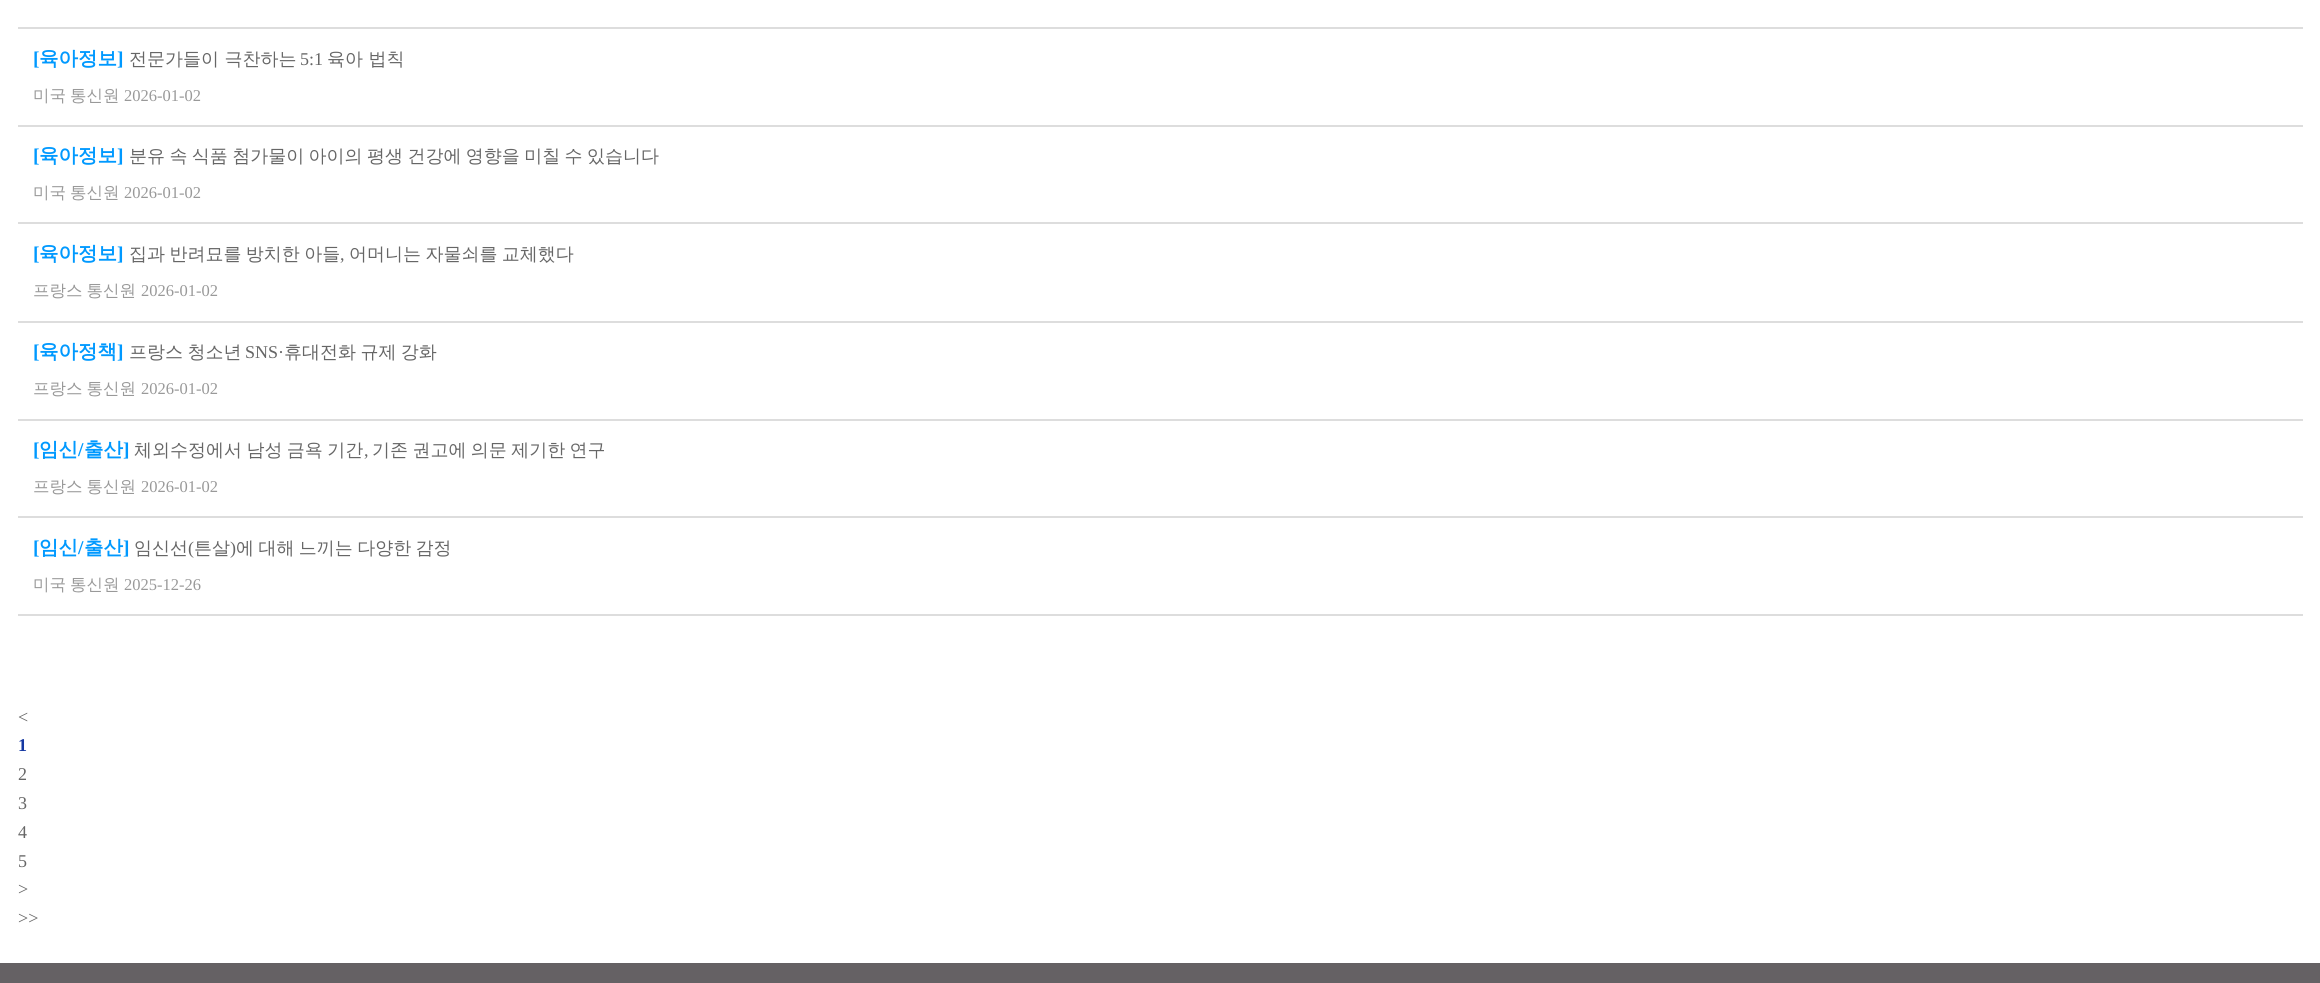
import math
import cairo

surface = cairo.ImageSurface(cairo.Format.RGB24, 2320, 983)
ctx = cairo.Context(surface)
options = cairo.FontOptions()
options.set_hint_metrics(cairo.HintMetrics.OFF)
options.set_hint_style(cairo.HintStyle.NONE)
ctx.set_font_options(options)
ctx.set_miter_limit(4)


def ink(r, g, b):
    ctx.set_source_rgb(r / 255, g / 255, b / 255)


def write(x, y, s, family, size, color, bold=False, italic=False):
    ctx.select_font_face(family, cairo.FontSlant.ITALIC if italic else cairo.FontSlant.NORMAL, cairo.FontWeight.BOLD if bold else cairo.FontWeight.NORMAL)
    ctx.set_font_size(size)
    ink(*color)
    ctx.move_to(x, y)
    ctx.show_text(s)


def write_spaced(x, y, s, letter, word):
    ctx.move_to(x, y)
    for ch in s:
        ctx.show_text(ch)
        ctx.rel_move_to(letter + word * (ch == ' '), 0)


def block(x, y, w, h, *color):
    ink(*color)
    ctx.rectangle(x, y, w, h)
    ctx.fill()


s1 = dict(family="Liberation Serif", size=19.5, color=(0, 153, 255), bold=True)
s2 = dict(family="WenQuanYi Zen Hei", size=19.5, color=(0, 153, 255), bold=True)
s3 = dict(family="WenQuanYi Zen Hei Medium", size=18, color=(102, 102, 102))
s4 = dict(family="Liberation Serif", size=18, color=(102, 102, 102))
s5 = dict(family="Liberation Serif", size=16.5, color=(153, 153, 153))
s6 = dict(family="Liberation Serif", size=18, color=(21, 56, 162), bold=True)

ink(255, 255, 255)
ctx.paint()
block(18, 27, 2285, 2, 221, 221, 221)
block(18, 125, 2285, 2, 221, 221, 221)
write(33, 65, "[", **s1)
write(39, 65, "육아정보", **s2)
write(117, 65, "]", **s1)
write(129, 65, "전문가들이 극찬하는", **s3)
write(300, 65, "5:1", **s4)
write(327, 65, "육아 법칙", **s3)
ctx.set_font_size(16.5)
ink(153, 153, 153)
write_spaced(33, 101, "미국 통신원", 0, -1)
write(124, 101, "2026-01-02", **s5)
block(18, 222, 2285, 2, 221, 221, 221)
write(33, 162, "[", **s1)
write(39, 162, "육아정보", **s2)
write(117, 162, "]", **s1)
ctx.select_font_face("WenQuanYi Zen Hei Medium")
ctx.set_font_size(18)
ink(102, 102, 102)
write_spaced(129, 162, "분유 속 식품 첨가물이 아이의 평생 건강에 영향을 미칠 수 있습니다", 0, -1)
ctx.set_font_size(16.5)
ink(153, 153, 153)
write_spaced(33, 198, "미국 통신원", 0, -1)
write(124, 198, "2026-01-02", **s5)
block(18, 321, 2285, 2, 221, 221, 221)
write(33, 260, "[", **s1)
write(39, 260, "육아정보", **s2)
write(117, 260, "]", **s1)
ctx.select_font_face("WenQuanYi Zen Hei Medium")
ctx.set_font_size(18)
ink(102, 102, 102)
write_spaced(129, 260, "집과 반려묘를 방치한 아들", 0, -1)
write(340, 260, ",", **s4)
ctx.select_font_face("WenQuanYi Zen Hei Medium")
write_spaced(349, 260, "어머니는 자물쇠를 교체했다", 0, -1)
ctx.set_font_size(16.5)
ink(153, 153, 153)
write_spaced(33, 296, "프랑스 통신원", 0, -1)
write(141, 296, "2026-01-02", **s5)
block(18, 419, 2285, 2, 221, 221, 221)
write(33, 358, "[", **s1)
write(39, 358, "육아정책", **s2)
write(117, 358, "]", **s1)
ctx.select_font_face("WenQuanYi Zen Hei Medium")
ctx.set_font_size(18)
ink(102, 102, 102)
write_spaced(129, 358, "프랑스 청소년", 0, -1)
write(245, 358, "SNS·", **s4)
ctx.select_font_face("WenQuanYi Zen Hei Medium")
write_spaced(284, 358, "휴대전화 규제 강화", 0, -1)
ctx.set_font_size(16.5)
ink(153, 153, 153)
write_spaced(33, 394, "프랑스 통신원", 0, -1)
write(141, 394, "2026-01-02", **s5)
block(18, 516, 2285, 2, 221, 221, 221)
write(33, 456, "[", **s1)
write(39, 456, "임신", **s2)
write(78, 456, "/", **s1)
write(84, 456, "출산", **s2)
write(123, 456, "]", **s1)
ctx.select_font_face("WenQuanYi Zen Hei Medium")
ctx.set_font_size(18)
ink(102, 102, 102)
write_spaced(134, 456, "체외수정에서 남성 금욕 기간", 0, -1)
write(364, 456, ",", **s4)
ctx.select_font_face("WenQuanYi Zen Hei Medium")
write_spaced(372, 456, "기존 권고에 의문 제기한 연구", 0, -1)
ctx.set_font_size(16.5)
ink(153, 153, 153)
write_spaced(33, 492, "프랑스 통신원", 0, -1)
write(141, 492, "2026-01-02", **s5)
block(18, 614, 2285, 2, 221, 221, 221)
write(33, 554, "[", **s1)
write(39, 554, "임신", **s2)
write(78, 554, "/", **s1)
write(84, 554, "출산", **s2)
write(123, 554, "]", **s1)
write(134, 554, "임신선", **s3)
write(188, 554, "(", **s4)
write(194, 554, "튼살", **s3)
write(230, 554, ")", **s4)
ctx.select_font_face("WenQuanYi Zen Hei Medium")
write_spaced(236, 554, "에 대해 느끼는 다양한 감정", 0, -1)
ctx.set_font_size(16.5)
ink(153, 153, 153)
write_spaced(33, 590, "미국 통신원", 0, -1)
write(124, 590, "2025-12-26", **s5)
write(18, 723, "<", **s4)
write(18, 751, "1", **s6)
write(18, 780, "2", **s4)
write(18, 809, "3", **s4)
write(18, 838, "4", **s4)
write(18, 867, "5", **s4)
write(18, 895, ">", **s4)
write(18, 924, ">>", **s4)
block(0, 963, 2320, 20, 101, 97, 100)
surface.write_to_png("screenshot.png")
